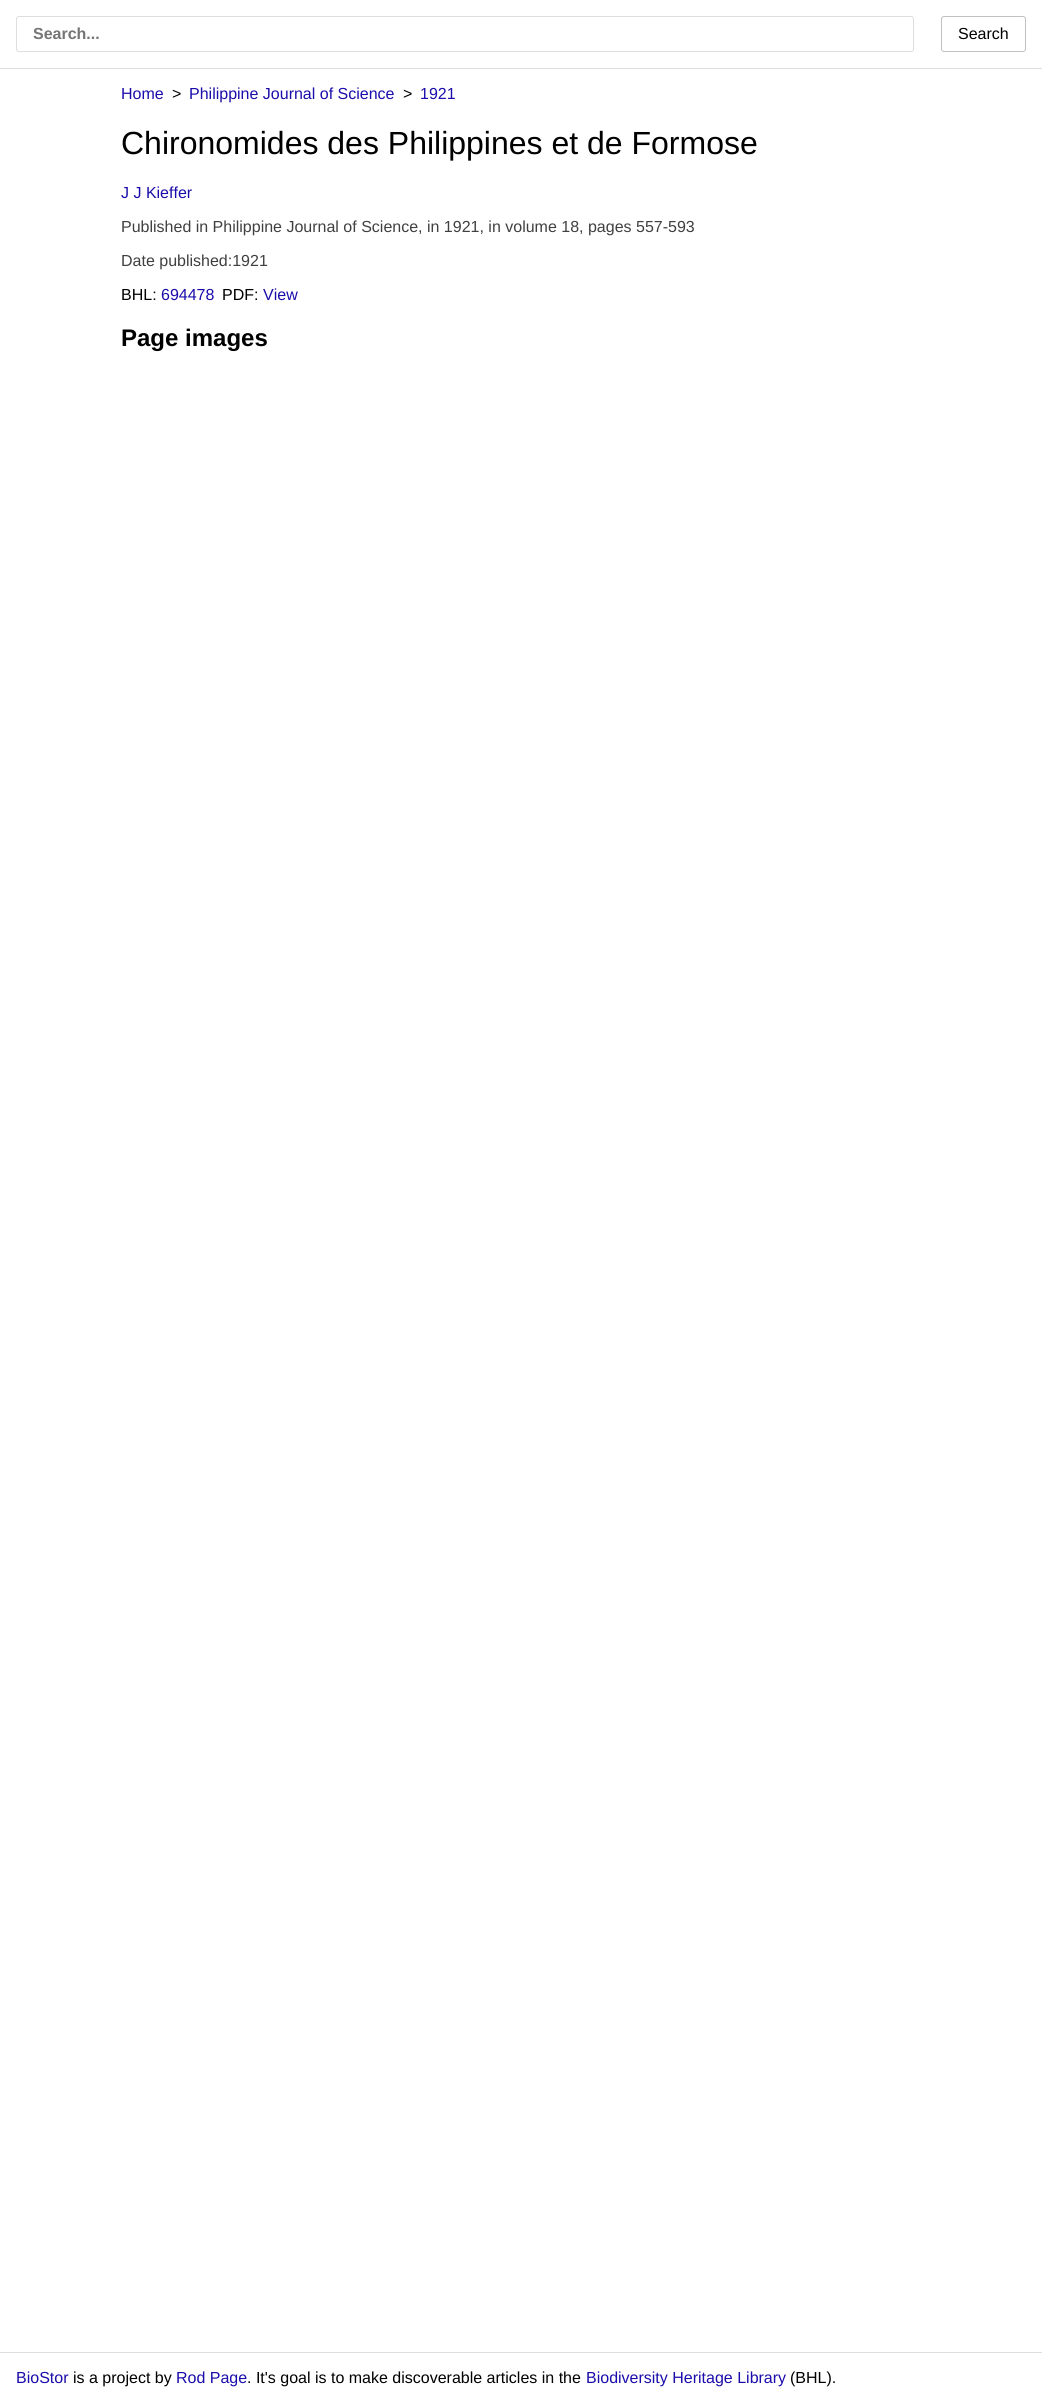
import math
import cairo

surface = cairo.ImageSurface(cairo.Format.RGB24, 1042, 2403)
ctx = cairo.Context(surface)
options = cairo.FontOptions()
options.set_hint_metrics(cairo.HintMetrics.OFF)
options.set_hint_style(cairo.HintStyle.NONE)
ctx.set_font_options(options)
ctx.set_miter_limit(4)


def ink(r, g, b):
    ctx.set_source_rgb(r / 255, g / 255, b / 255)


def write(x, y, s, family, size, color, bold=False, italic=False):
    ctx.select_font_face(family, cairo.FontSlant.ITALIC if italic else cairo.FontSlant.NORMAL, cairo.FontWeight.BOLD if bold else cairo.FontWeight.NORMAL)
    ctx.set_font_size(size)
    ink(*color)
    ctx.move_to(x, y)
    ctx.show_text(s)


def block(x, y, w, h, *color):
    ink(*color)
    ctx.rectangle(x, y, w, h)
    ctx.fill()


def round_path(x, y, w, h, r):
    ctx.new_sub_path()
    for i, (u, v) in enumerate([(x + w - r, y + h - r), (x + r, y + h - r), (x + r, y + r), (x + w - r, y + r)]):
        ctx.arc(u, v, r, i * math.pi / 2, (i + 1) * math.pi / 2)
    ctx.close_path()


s1 = dict(family="Liberation Sans", size=16, color=(117, 117, 117), bold=True)
s2 = dict(family="Liberation Sans", size=16, color=(0, 0, 0))
s3 = dict(family="Liberation Sans", size=16, color=(26, 13, 171))
s4 = dict(family="Liberation Sans", size=32, color=(0, 0, 0))
s5 = dict(family="Liberation Sans", size=16, color=(64, 64, 64))
s6 = dict(family="Liberation Sans", size=24, color=(0, 0, 0), bold=True)

ink(255, 255, 255)
ctx.paint()
block(0, 68, 1042, 1, 222, 222, 222)
round_path(16.5, 16.5, 897, 35, 2.5)
ctx.set_line_width(1)
ctx.stroke()
write(33, 39, "Search...", **s1)
round_path(941.5, 16.5, 84, 35, 2.5)
ink(192, 192, 192)
ctx.stroke()
write(958, 39, "Search", **s2)
write(121, 99, "Home", **s3)
write(172, 99, ">", **s2)
write(189, 99, "Philippine Journal of Science", **s3)
write(403, 99, ">", **s2)
write(420, 99, "1921", **s3)
write(121, 154, "Chironomides des Philippines et de Formose", **s4)
write(121, 198, "J J Kieffer", **s3)
write(121, 232, "Published in Philippine Journal of Science, in 1921, in volume 18, pages 557-593", **s5)
write(121, 266, "Date published:1921", **s5)
write(121, 300, "BHL:", **s2)
write(161, 300, "694478", **s3)
write(222, 300, "PDF:", **s2)
write(263, 300, "View", **s3)
write(121, 346, "Page images", **s6)
block(0, 2352, 1042, 1, 222, 222, 222)
write(16, 2383, "BioStor", **s3)
write(73, 2383, "is a project by", **s2)
write(176, 2383, "Rod Page", **s3)
write(247, 2383, ". It's goal is to make discoverable articles in the", **s2)
write(586, 2383, "Biodiversity Heritage Library", **s3)
write(790, 2383, "(BHL).", **s2)
surface.write_to_png("screenshot.png")
